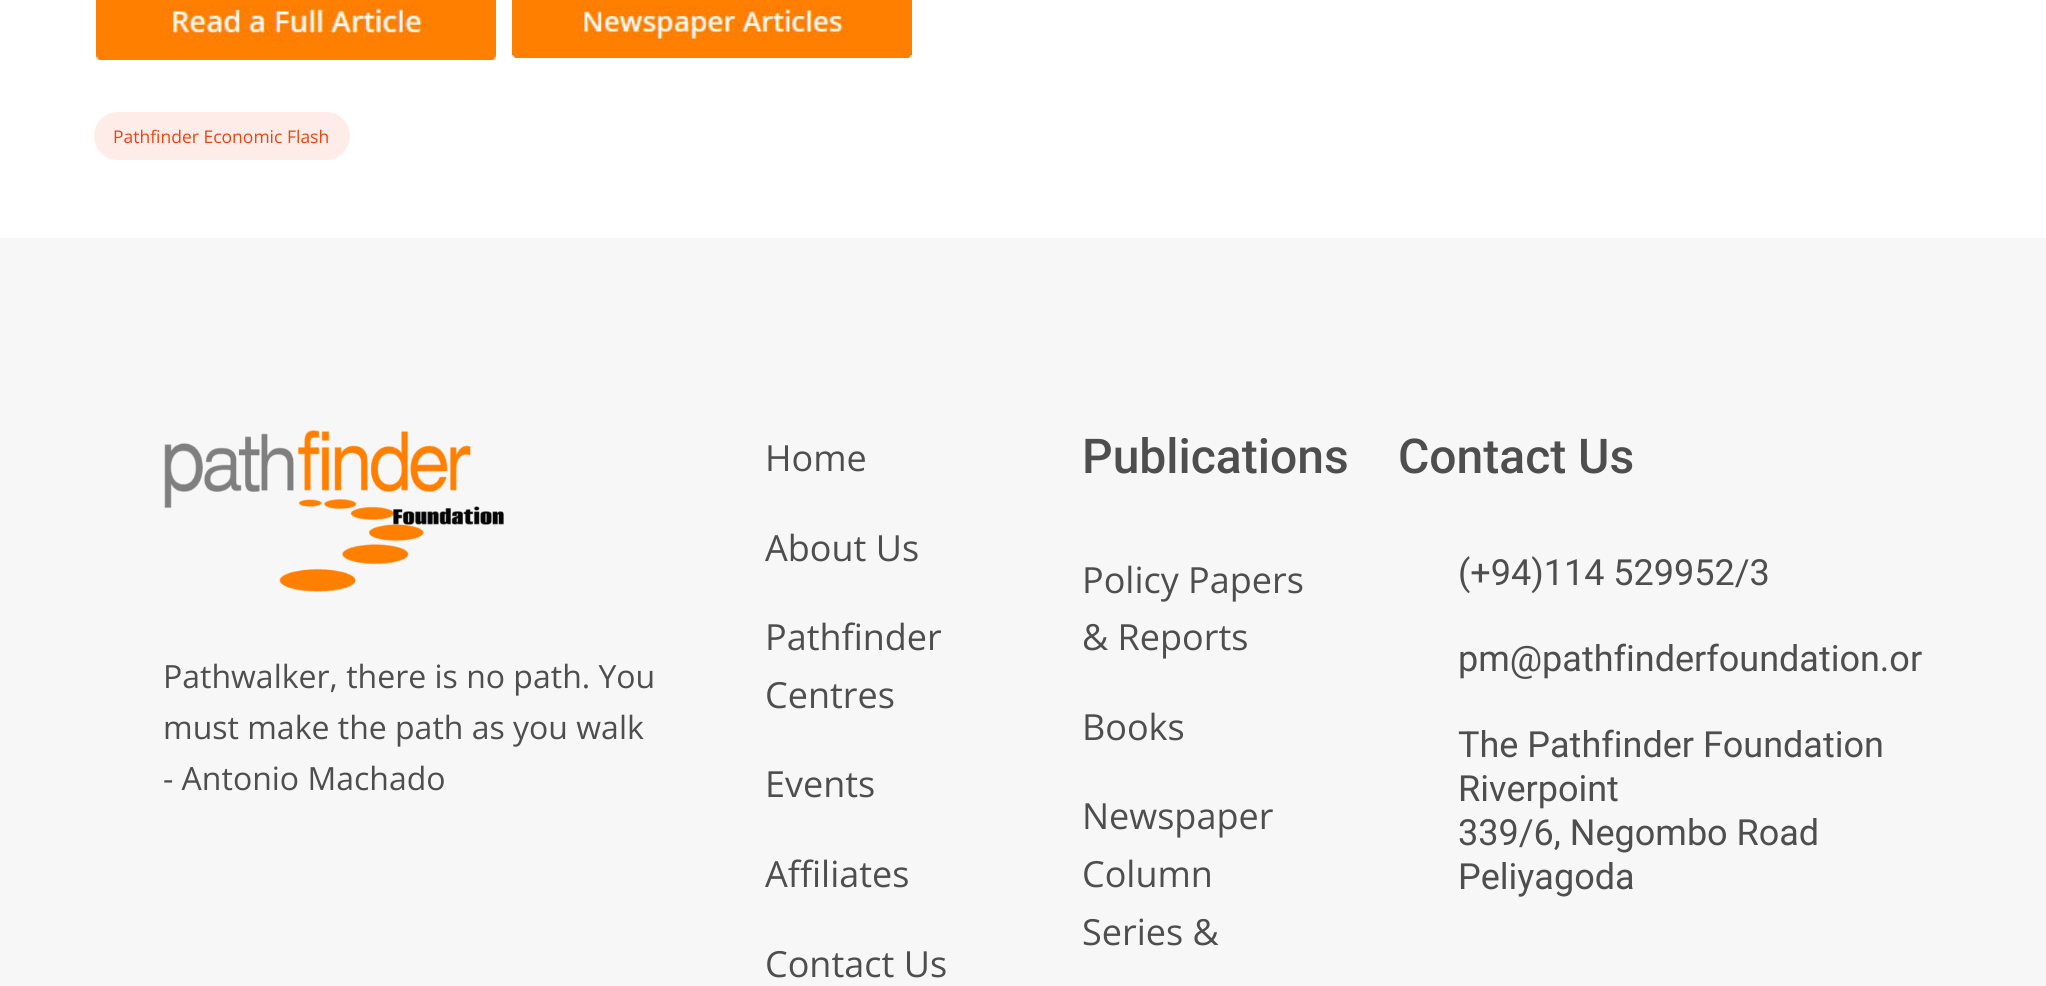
import math
import cairo

surface = cairo.ImageSurface(cairo.Format.RGB24, 2046, 986)
ctx = cairo.Context(surface)
options = cairo.FontOptions()
options.set_hint_metrics(cairo.HintMetrics.OFF)
options.set_hint_style(cairo.HintStyle.NONE)
ctx.set_font_options(options)
ctx.set_miter_limit(4)


def ink(r, g, b):
    ctx.set_source_rgb(r / 255, g / 255, b / 255)


def write(x, y, s, family, size, color, bold=False, italic=False):
    ctx.select_font_face(family, cairo.FontSlant.ITALIC if italic else cairo.FontSlant.NORMAL, cairo.FontWeight.BOLD if bold else cairo.FontWeight.NORMAL)
    ctx.set_font_size(size)
    ink(*color)
    ctx.move_to(x, y)
    ctx.show_text(s)


def block(x, y, w, h, *color):
    ink(*color)
    ctx.rectangle(x, y, w, h)
    ctx.fill()


def round_path(x, y, w, h, r):
    ctx.new_sub_path()
    for i, (u, v) in enumerate([(x + w - r, y + h - r), (x + r, y + h - r), (x + r, y + r), (x + w - r, y + r)]):
        ctx.arc(u, v, r, i * math.pi / 2, (i + 1) * math.pi / 2)
    ctx.close_path()


def paste(path, x, y, w, h):
    ctx.save()
    ctx.set_source_surface(cairo.ImageSurface.create_from_png(path), x, y)
    ctx.rectangle(x, y, w, h)
    ctx.fill()
    ctx.restore()


s1 = dict(family="Open Sans", size=17.5, color=(236, 67, 15))
s2 = dict(family="Open Sans", size=32, color=(78, 78, 78))
s3 = dict(family="Open Sans", size=36, color=(78, 78, 78))
s4 = dict(family="Roboto Medium", size=48, color=(78, 78, 78))
s5 = dict(family="Roboto", size=36, color=(78, 78, 78))

ink(255, 255, 255)
ctx.paint()
paste("pic1.png", 96, 0, 400, 60)
paste("pic2.png", 512, 0, 400, 58)
ink(253, 236, 231)
round_path(94, 112, 256, 48, 24)
ctx.fill()
write(113, 143, "Pathfinder Economic Flash", **s1)
block(0, 238, 2046, 748, 247, 247, 247)
paste("pic3.png", 164, 430, 340, 162)
write(163, 688, "Pathwalker, there is no path. You", **s2)
write(163, 739, "must make the path as you walk", **s2)
write(163, 790, "- Antonio Machado", **s2)
write(765, 471, "Home", **s3)
write(765, 561, "About Us", **s3)
write(765, 650, "Pathfinder", **s3)
write(765, 708, "Centres", **s3)
write(765, 797, "Events", **s3)
write(765, 887, "Affiliates", **s3)
write(765, 977, "Contact Us", **s3)
write(1082, 473, "Publications", **s4)
write(1082, 593, "Policy Papers", **s3)
write(1082, 650, "& Reports", **s3)
write(1082, 740, "Books", **s3)
write(1082, 829, "Newspaper", **s3)
write(1082, 887, "Column", **s3)
write(1082, 945, "Series &", **s3)
write(1398, 473, "Contact Us", **s4)
write(1458, 585, "(+94)114 529952/3", **s5)
write(1458, 671, "pm@pathfinderfoundation.or", **s5)
write(1458, 757, "The Pathfinder Foundation", **s5)
write(1458, 801, "Riverpoint", **s5)
write(1458, 845, "339/6, Negombo Road", **s5)
write(1458, 889, "Peliyagoda", **s5)
surface.write_to_png("screenshot.png")
